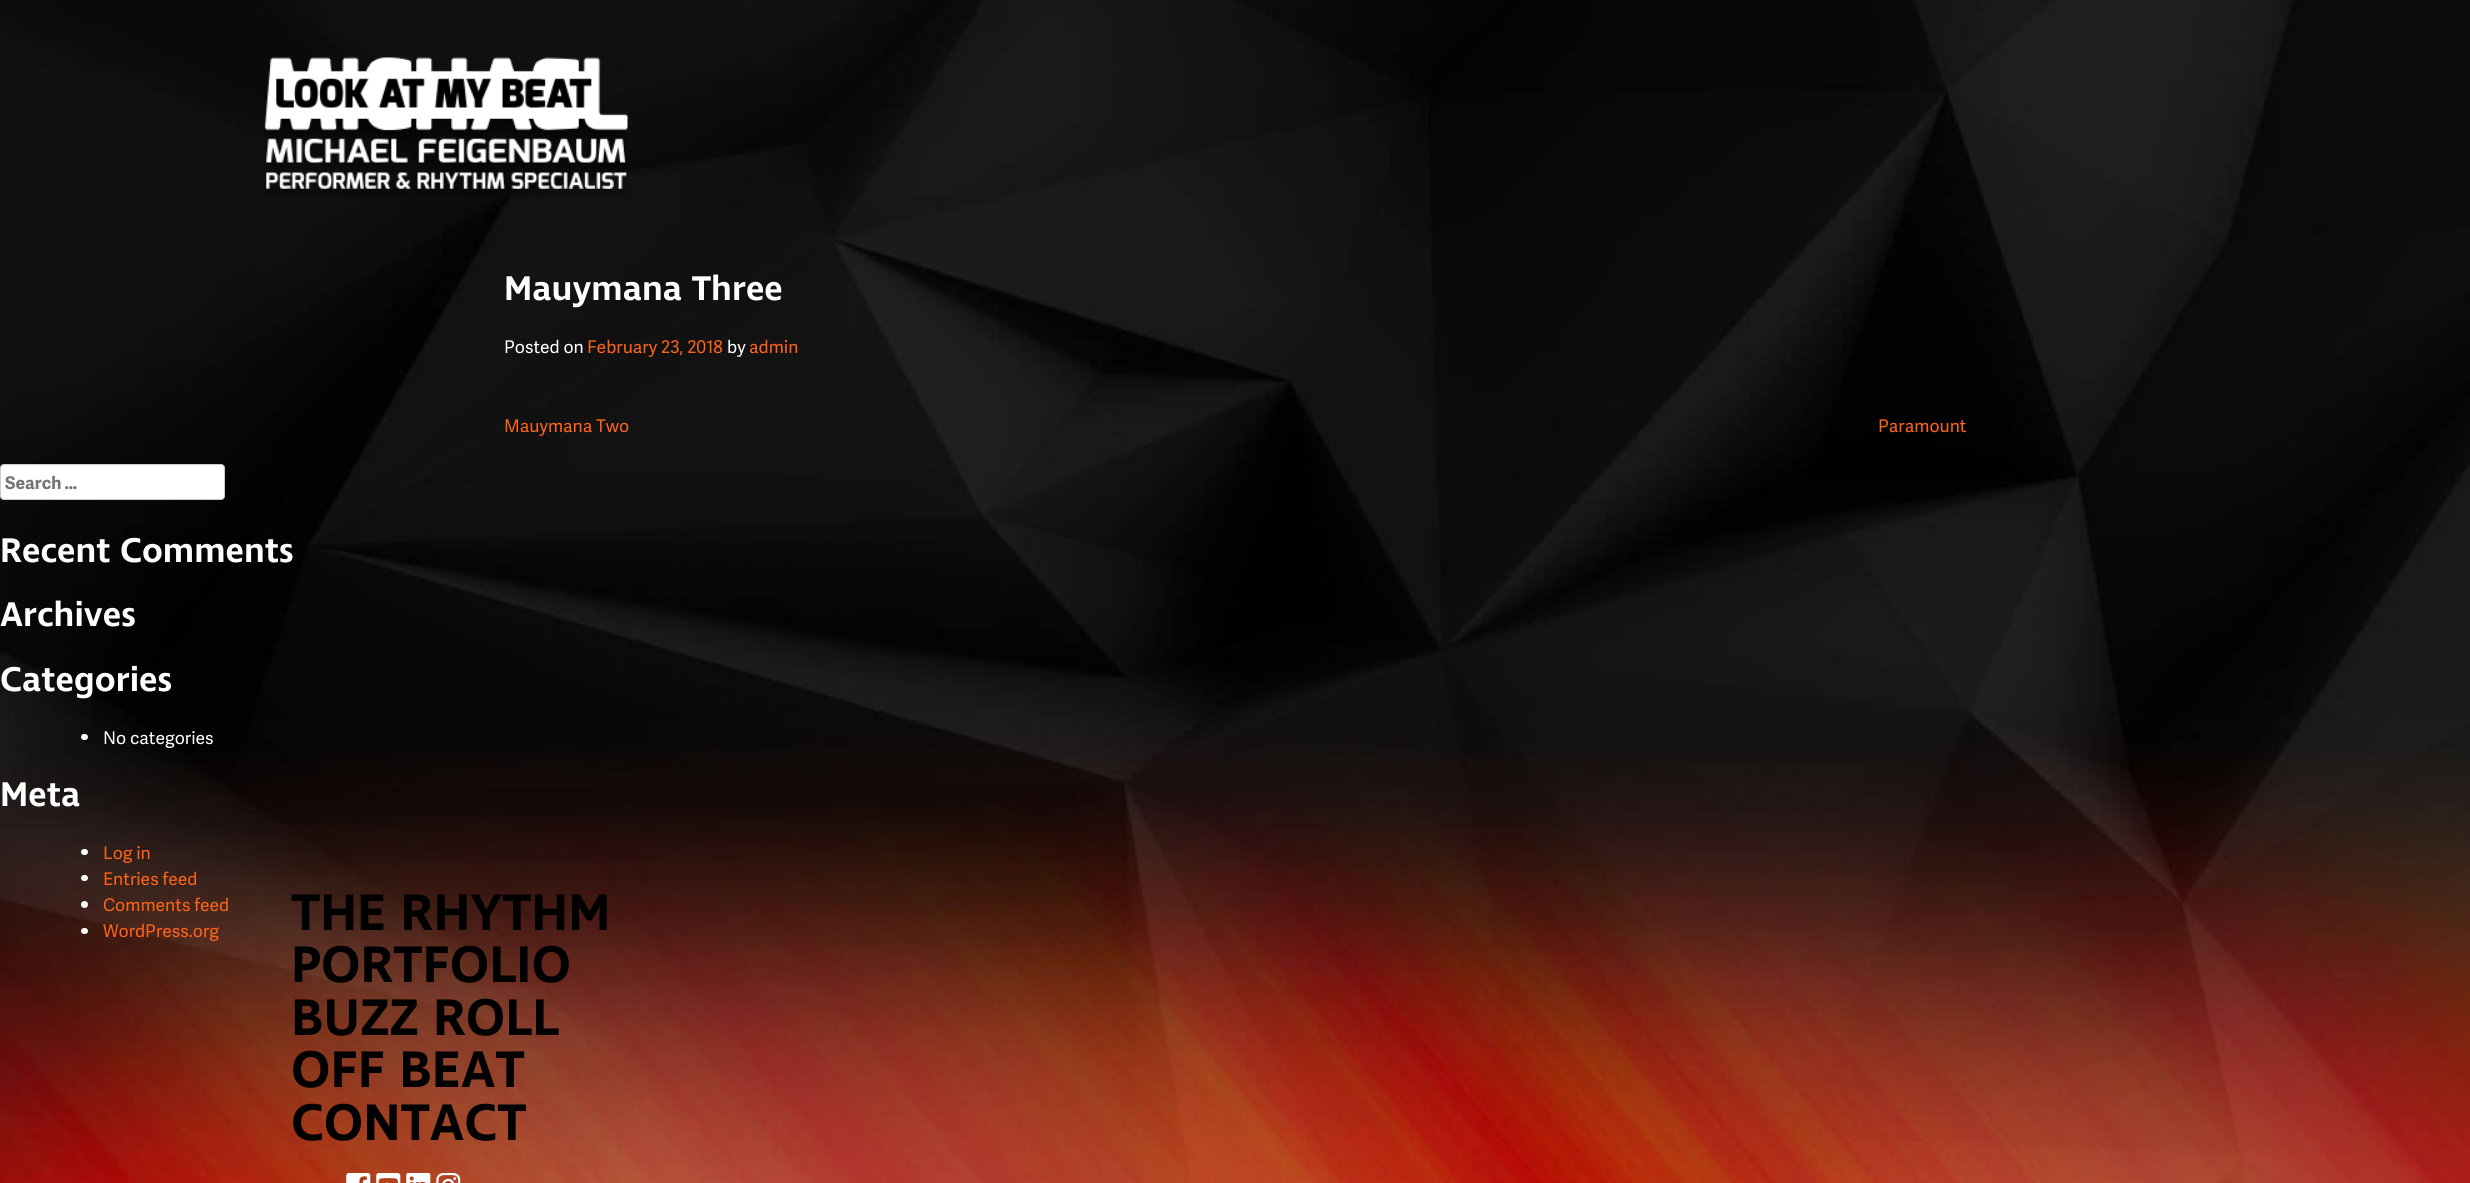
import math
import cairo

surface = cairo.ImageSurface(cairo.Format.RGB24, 2470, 1183)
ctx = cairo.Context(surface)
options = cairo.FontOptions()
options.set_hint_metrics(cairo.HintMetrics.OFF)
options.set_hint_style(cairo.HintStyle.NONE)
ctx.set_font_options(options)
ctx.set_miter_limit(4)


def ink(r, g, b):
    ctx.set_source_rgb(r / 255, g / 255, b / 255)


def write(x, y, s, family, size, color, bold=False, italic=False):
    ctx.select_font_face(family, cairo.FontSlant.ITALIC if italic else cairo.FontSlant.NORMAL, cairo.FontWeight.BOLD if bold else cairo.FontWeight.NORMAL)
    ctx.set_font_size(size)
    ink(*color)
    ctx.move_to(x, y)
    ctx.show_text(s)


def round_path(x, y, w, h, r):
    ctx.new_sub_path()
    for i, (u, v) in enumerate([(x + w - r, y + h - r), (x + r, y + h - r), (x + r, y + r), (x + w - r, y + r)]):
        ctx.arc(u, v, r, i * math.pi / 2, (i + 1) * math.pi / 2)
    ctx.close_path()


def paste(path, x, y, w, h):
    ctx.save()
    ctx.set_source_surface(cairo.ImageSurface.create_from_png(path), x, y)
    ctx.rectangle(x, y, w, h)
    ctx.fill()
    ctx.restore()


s1 = dict(family="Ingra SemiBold", size=35, color=(255, 255, 255))
s2 = dict(family="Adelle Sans", size=17.5, color=(255, 255, 255))
s3 = dict(family="Adelle Sans", size=17.5, color=(254, 99, 24))
s4 = dict(family="Adelle Sans", size=17.5, color=(117, 117, 117), bold=True)
s5 = dict(family="Ingra SemiBold", size=52.5, color=(0, 0, 0))

ink(255, 255, 255)
ctx.paint()
paste("pic1.png", 0, 0, 2470, 1183)
paste("pic2.png", 264, 57, 364, 140)
write(504, 300, "Mauymana Three", **s1)
write(504, 353, "Posted on", **s2)
write(587, 353, "February 23, 2018", **s3)
write(727, 353, "by", **s2)
write(749, 353, "admin", **s3)
write(504, 432, "Mauymana Two", **s3)
write(1878, 432, "Paramount", **s3)
ink(255, 255, 255)
round_path(0.5, 464.5, 224, 35, 3.5)
ctx.fill_preserve()
ink(204, 204, 204)
ctx.set_line_width(1)
ctx.stroke()
write(5, 489, "Search …", **s4)
write(0, 562, "Recent Comments", **s1)
write(0, 626, "Archives", **s1)
write(0, 691, "Categories", **s1)
round_path(81, 734, 7, 6, 3)
ctx.fill()
write(103, 744, "No categories", **s2)
write(0, 806, "Meta", **s1)
round_path(81, 849, 7, 6, 3)
ctx.fill()
write(103, 859, "Log in", **s3)
ink(255, 255, 255)
round_path(81, 875, 7, 6, 3)
ctx.fill()
write(103, 885, "Entries feed", **s3)
ink(255, 255, 255)
ctx.new_path()
ctx.arc(84.5, 904.5, 3.5, 0, 2 * math.pi)
ctx.fill()
write(103, 911, "Comments feed", **s3)
ink(255, 255, 255)
round_path(81, 928, 7, 6, 3)
ctx.fill()
write(103, 937, "WordPress.org", **s3)
write(291, 930, "THE RHYTHM", **s5)
write(291, 982, "PORTFOLIO", **s5)
write(291, 1035, "BUZZ ROLL", **s5)
write(291, 1087, "OFF BEAT", **s5)
write(291, 1140, "CONTACT", **s5)
paste("pic3.png", 346, 1173, 25, 10)
paste("pic4.png", 376, 1173, 25, 10)
paste("pic5.png", 406, 1173, 25, 10)
paste("pic6.png", 436, 1172, 25, 11)
surface.write_to_png("screenshot.png")
